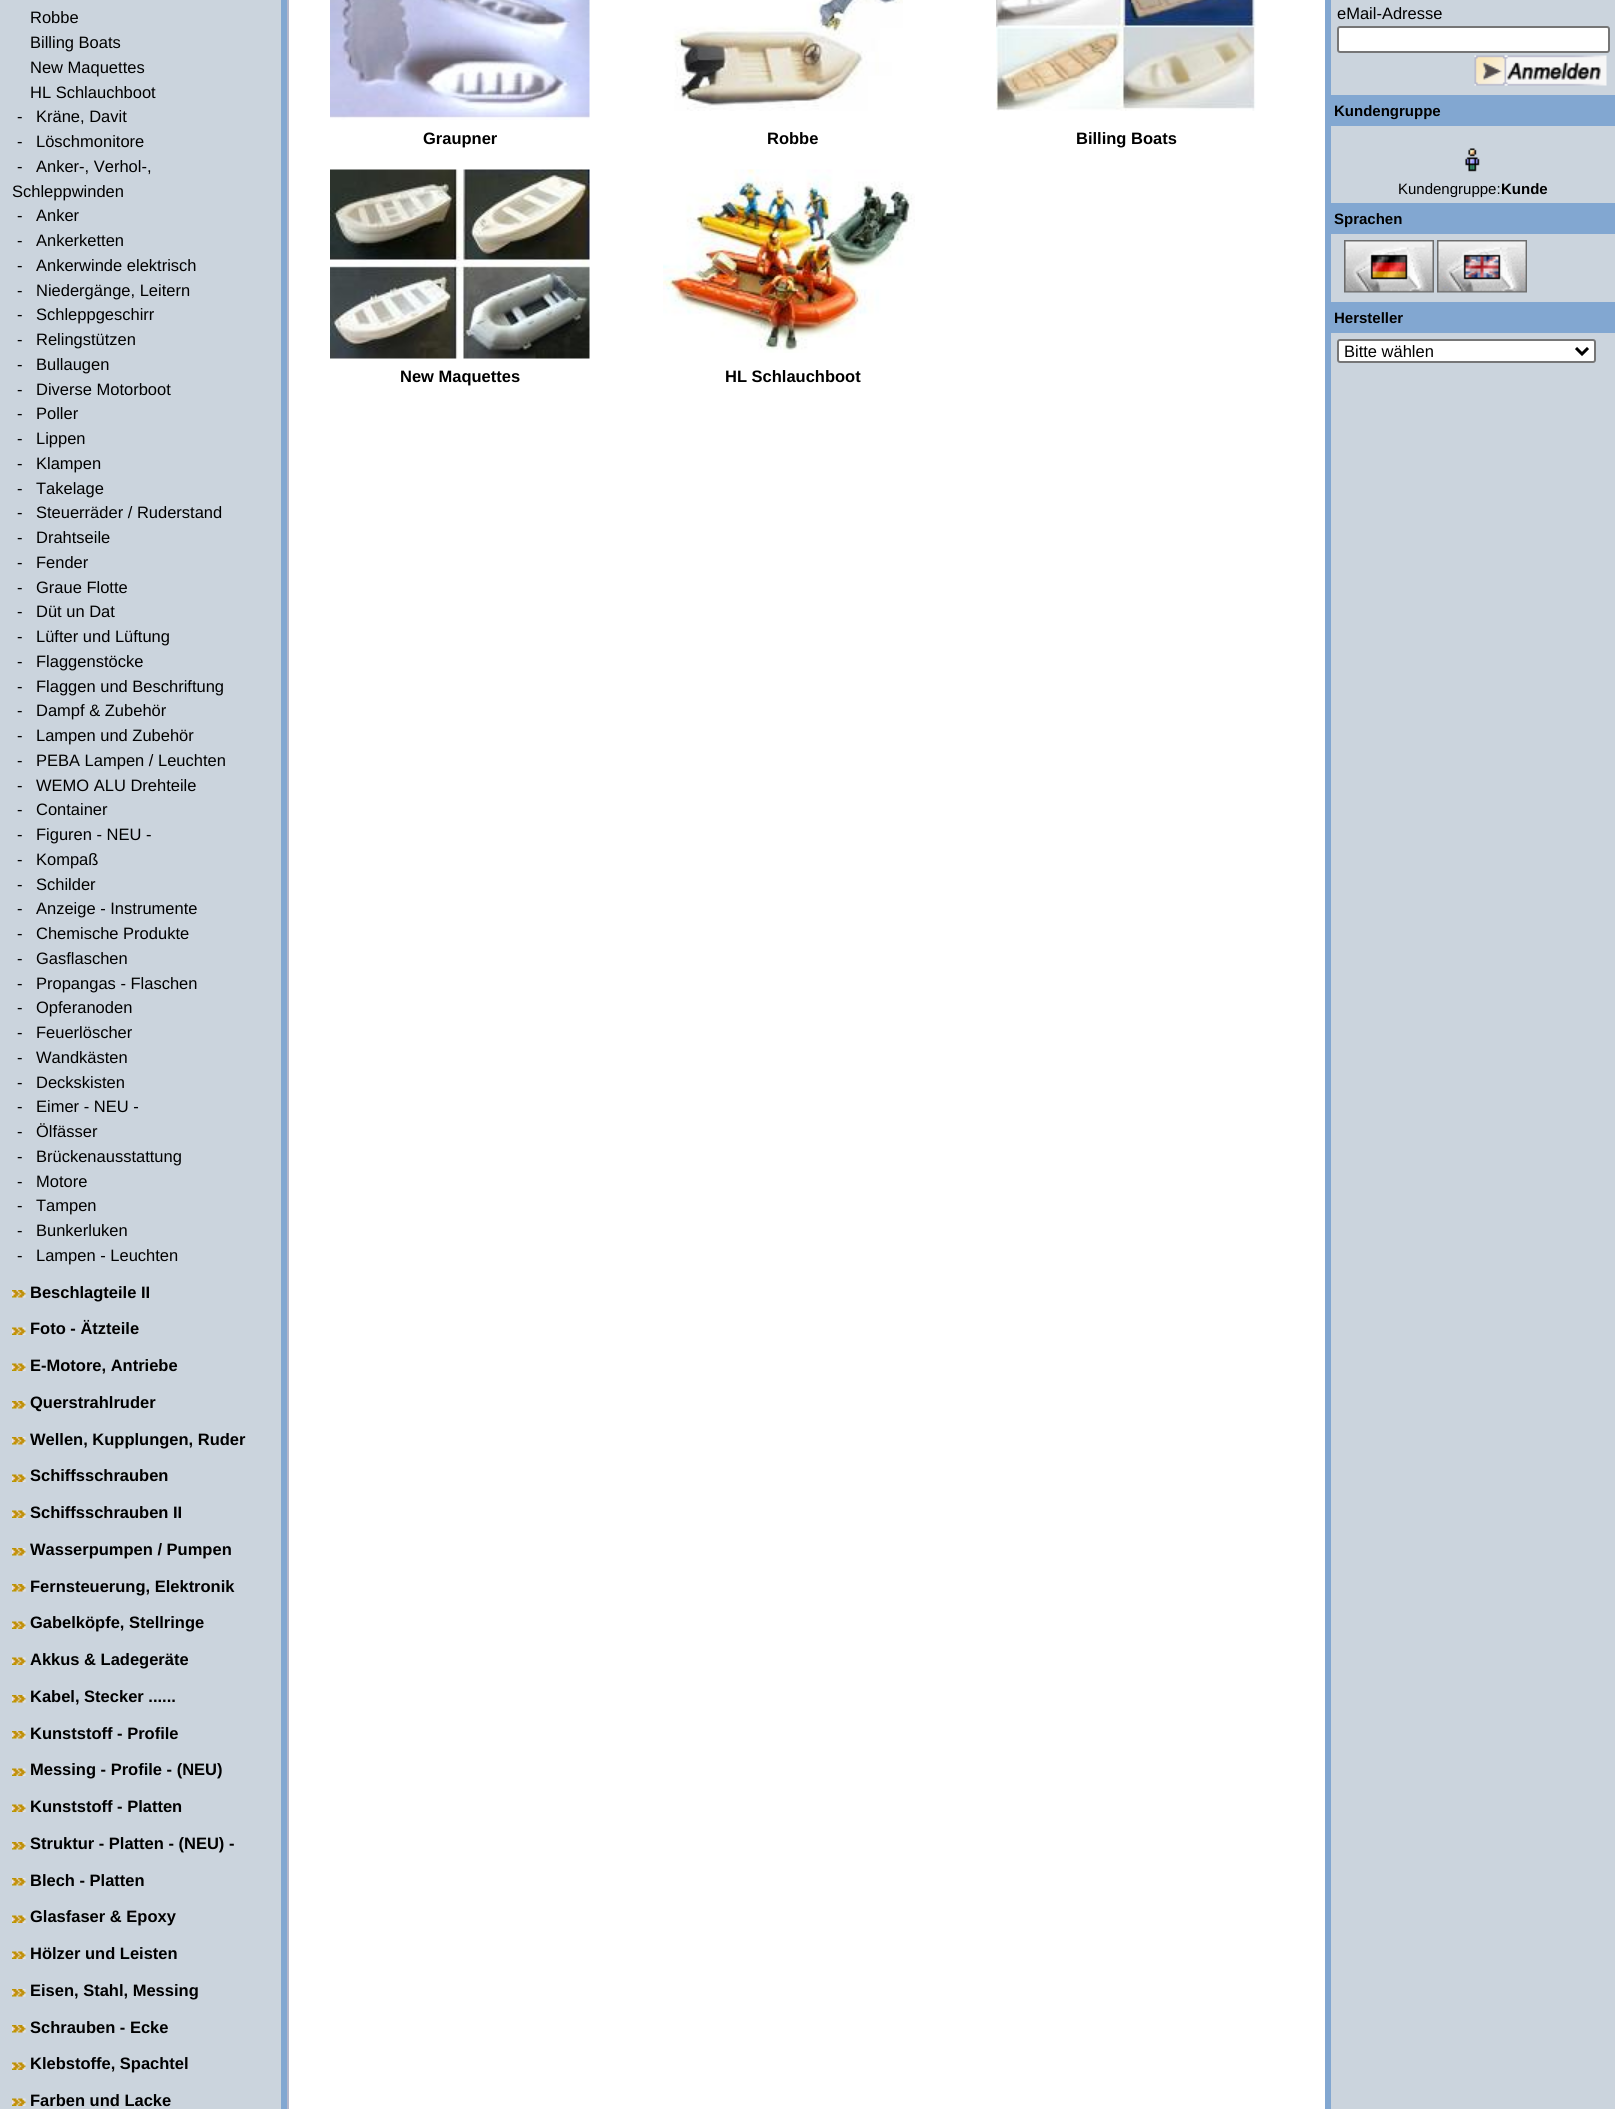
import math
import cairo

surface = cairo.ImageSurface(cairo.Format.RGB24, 1615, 2109)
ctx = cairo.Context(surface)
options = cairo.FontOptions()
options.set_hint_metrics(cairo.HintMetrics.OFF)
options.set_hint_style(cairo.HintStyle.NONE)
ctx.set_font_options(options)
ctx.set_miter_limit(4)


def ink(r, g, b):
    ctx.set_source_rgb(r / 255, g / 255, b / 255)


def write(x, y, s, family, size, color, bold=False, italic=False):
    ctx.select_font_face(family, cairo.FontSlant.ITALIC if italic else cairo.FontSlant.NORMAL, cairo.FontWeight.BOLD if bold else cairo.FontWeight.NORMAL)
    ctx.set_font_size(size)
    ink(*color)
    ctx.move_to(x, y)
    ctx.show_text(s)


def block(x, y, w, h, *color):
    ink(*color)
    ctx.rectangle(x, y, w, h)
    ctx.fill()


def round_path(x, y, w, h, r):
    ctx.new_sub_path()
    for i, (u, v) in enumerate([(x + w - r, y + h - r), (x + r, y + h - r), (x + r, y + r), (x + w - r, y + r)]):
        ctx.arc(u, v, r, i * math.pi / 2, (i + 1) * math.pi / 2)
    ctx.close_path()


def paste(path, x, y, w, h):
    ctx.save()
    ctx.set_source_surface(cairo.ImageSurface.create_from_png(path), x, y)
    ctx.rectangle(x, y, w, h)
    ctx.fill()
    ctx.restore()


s1 = dict(family="Liberation Sans", size=16.5, color=(0, 0, 0))
s2 = dict(family="Liberation Sans", size=16.5, color=(0, 0, 0), bold=True)
s3 = dict(family="Liberation Sans", size=15, color=(0, 0, 0), bold=True)
s4 = dict(family="Liberation Sans", size=15, color=(0, 0, 0))

ink(255, 255, 255)
ctx.paint()
block(287, 0, 2, 2109, 182, 183, 203)
block(0, 0, 281, 2109, 203, 212, 221)
block(281, 0, 6, 2109, 130, 167, 209)
write(30, 23, "Robbe", **s1)
write(30, 48, "Billing Boats", **s1)
write(30, 73, "New Maquettes", **s1)
write(30, 98, "HL Schlauchboot", **s1)
write(17, 122, "-", **s1)
write(36, 122, "Kräne, Davit", **s1)
write(17, 147, "-", **s1)
write(36, 147, "Löschmonitore", **s1)
write(17, 172, "-", **s1)
write(36, 172, "Anker-, Verhol-,", **s1)
write(12, 197, "Schleppwinden", **s1)
write(17, 221, "-", **s1)
write(36, 221, "Anker", **s1)
write(17, 246, "-", **s1)
write(36, 246, "Ankerketten", **s1)
write(17, 271, "-", **s1)
write(36, 271, "Ankerwinde elektrisch", **s1)
write(17, 296, "-", **s1)
write(36, 296, "Niedergänge, Leitern", **s1)
write(17, 320, "-", **s1)
write(36, 320, "Schleppgeschirr", **s1)
write(17, 345, "-", **s1)
write(36, 345, "Relingstützen", **s1)
write(17, 370, "-", **s1)
write(36, 370, "Bullaugen", **s1)
write(17, 395, "-", **s1)
write(36, 395, "Diverse Motorboot", **s1)
write(17, 419, "-", **s1)
write(36, 419, "Poller", **s1)
write(17, 444, "-", **s1)
write(36, 444, "Lippen", **s1)
write(17, 469, "-", **s1)
write(36, 469, "Klampen", **s1)
write(17, 494, "-", **s1)
write(36, 494, "Takelage", **s1)
write(17, 518, "-", **s1)
write(36, 518, "Steuerräder / Ruderstand", **s1)
write(17, 543, "-", **s1)
write(36, 543, "Drahtseile", **s1)
write(17, 568, "-", **s1)
write(36, 568, "Fender", **s1)
write(17, 593, "-", **s1)
write(36, 593, "Graue Flotte", **s1)
write(17, 617, "-", **s1)
write(36, 617, "Düt un Dat", **s1)
write(17, 642, "-", **s1)
write(36, 642, "Lüfter und Lüftung", **s1)
write(17, 667, "-", **s1)
write(36, 667, "Flaggenstöcke", **s1)
write(17, 692, "-", **s1)
write(36, 692, "Flaggen und Beschriftung", **s1)
write(17, 716, "-", **s1)
write(36, 716, "Dampf & Zubehör", **s1)
write(17, 741, "-", **s1)
write(36, 741, "Lampen und Zubehör", **s1)
write(17, 766, "-", **s1)
write(36, 766, "PEBA Lampen / Leuchten", **s1)
write(17, 791, "-", **s1)
write(36, 791, "WEMO ALU Drehteile", **s1)
write(17, 815, "-", **s1)
write(36, 815, "Container", **s1)
write(17, 840, "-", **s1)
write(36, 840, "Figuren - NEU -", **s1)
write(17, 865, "-", **s1)
write(36, 865, "Kompaß", **s1)
write(17, 890, "-", **s1)
write(36, 890, "Schilder", **s1)
write(17, 914, "-", **s1)
write(36, 914, "Anzeige - Instrumente", **s1)
write(17, 939, "-", **s1)
write(36, 939, "Chemische Produkte", **s1)
write(17, 964, "-", **s1)
write(36, 964, "Gasflaschen", **s1)
write(17, 989, "-", **s1)
write(36, 989, "Propangas - Flaschen", **s1)
write(17, 1013, "-", **s1)
write(36, 1013, "Opferanoden", **s1)
write(17, 1038, "-", **s1)
write(36, 1038, "Feuerlöscher", **s1)
write(17, 1063, "-", **s1)
write(36, 1063, "Wandkästen", **s1)
write(17, 1088, "-", **s1)
write(36, 1088, "Deckskisten", **s1)
write(17, 1112, "-", **s1)
write(36, 1112, "Eimer - NEU -", **s1)
write(17, 1137, "-", **s1)
write(36, 1137, "Ölfässer", **s1)
write(17, 1162, "-", **s1)
write(36, 1162, "Brückenausstattung", **s1)
write(17, 1187, "-", **s1)
write(36, 1187, "Motore", **s1)
write(17, 1211, "-", **s1)
write(36, 1211, "Tampen", **s1)
write(17, 1236, "-", **s1)
write(36, 1236, "Bunkerluken", **s1)
write(17, 1261, "-", **s1)
write(36, 1261, "Lampen - Leuchten", **s1)
paste("pic1.png", 12, 1290, 14, 8)
write(30, 1298, "Beschlagteile II", **s2)
paste("pic2.png", 12, 1327, 14, 8)
write(30, 1334, "Foto - Ätzteile", **s2)
paste("pic2.png", 12, 1363, 14, 8)
write(30, 1371, "E-Motore, Antriebe", **s2)
paste("pic1.png", 12, 1401, 14, 8)
write(30, 1408, "Querstrahlruder", **s2)
paste("pic1.png", 12, 1437, 14, 8)
write(30, 1445, "Wellen, Kupplungen, Ruder", **s2)
paste("pic2.png", 12, 1474, 14, 8)
write(30, 1481, "Schiffsschrauben", **s2)
paste("pic2.png", 12, 1510, 14, 8)
write(30, 1518, "Schiffsschrauben II", **s2)
paste("pic1.png", 12, 1548, 14, 8)
write(30, 1555, "Wasserpumpen / Pumpen", **s2)
paste("pic1.png", 12, 1584, 14, 8)
write(30, 1592, "Fernsteuerung, Elektronik", **s2)
paste("pic2.png", 12, 1621, 14, 8)
write(30, 1628, "Gabelköpfe, Stellringe", **s2)
paste("pic2.png", 12, 1657, 14, 8)
write(30, 1665, "Akkus & Ladegeräte", **s2)
paste("pic1.png", 12, 1695, 14, 8)
write(30, 1702, "Kabel, Stecker ......", **s2)
paste("pic1.png", 12, 1731, 14, 8)
write(30, 1739, "Kunststoff - Profile", **s2)
paste("pic2.png", 12, 1768, 14, 8)
write(30, 1775, "Messing - Profile - (NEU)", **s2)
paste("pic2.png", 12, 1804, 14, 8)
write(30, 1812, "Kunststoff - Platten", **s2)
paste("pic1.png", 12, 1842, 14, 8)
write(30, 1849, "Struktur - Platten - (NEU) -", **s2)
paste("pic1.png", 12, 1878, 14, 8)
write(30, 1886, "Blech - Platten", **s2)
paste("pic2.png", 12, 1915, 14, 8)
write(30, 1922, "Glasfaser & Epoxy", **s2)
paste("pic2.png", 12, 1951, 14, 8)
write(30, 1959, "Hölzer und Leisten", **s2)
paste("pic1.png", 12, 1989, 14, 8)
write(30, 1996, "Eisen, Stahl, Messing", **s2)
paste("pic1.png", 12, 2025, 14, 8)
write(30, 2033, "Schrauben - Ecke", **s2)
paste("pic2.png", 12, 2062, 14, 8)
write(30, 2069, "Klebstoffe, Spachtel", **s2)
paste("pic2.png", 12, 2098, 14, 8)
write(30, 2106, "Farben und Lacke", **s2)
paste("pic3.png", 330, 0, 260, 120)
write(423, 144, "Graupner", **s2)
paste("pic4.png", 673, 0, 230, 111)
write(767, 144, "Robbe", **s2)
paste("pic5.png", 996, 0, 260, 111)
write(1076, 144, "Billing Boats", **s2)
paste("pic6.png", 330, 169, 260, 190)
write(400, 382, "New Maquettes", **s2)
paste("pic7.png", 663, 169, 252, 184)
write(725, 382, "HL Schlauchboot", **s2)
block(1331, 0, 284, 2109, 203, 212, 221)
block(1325, 0, 6, 2109, 130, 167, 209)
write(1337, 19, "eMail-Adresse", **s1)
ink(255, 255, 255)
round_path(1338, 27, 271, 25, 2)
ctx.fill_preserve()
ink(118, 118, 118)
ctx.stroke()
paste("pic8.png", 1474, 55, 133, 31)
block(1331, 95, 284, 31, 130, 167, 209)
write(1334, 116, "Kundengruppe", **s3)
paste("pic9.png", 1465, 148, 15, 24)
write(1398, 194, "Kundengruppe:", **s4)
write(1501, 194, "Kunde", **s3)
block(1331, 203, 284, 31, 130, 167, 209)
write(1334, 224, "Sprachen", **s3)
paste("pic10.png", 1344, 240, 90, 53)
paste("pic11.png", 1437, 240, 90, 53)
block(1331, 302, 284, 31, 130, 167, 209)
write(1334, 323, "Hersteller", **s3)
ink(255, 255, 255)
round_path(1338, 340, 257, 22, 2)
ctx.fill_preserve()
ink(118, 118, 118)
ctx.stroke()
ctx.new_path()
ctx.move_to(1576, 348)
ctx.line_to(1582, 354)
ctx.line_to(1588, 348)
ink(0, 0, 0)
ctx.set_line_width(3)
ctx.stroke()
write(1344, 357, "Bitte wählen", **s1)
surface.write_to_png("screenshot.png")
